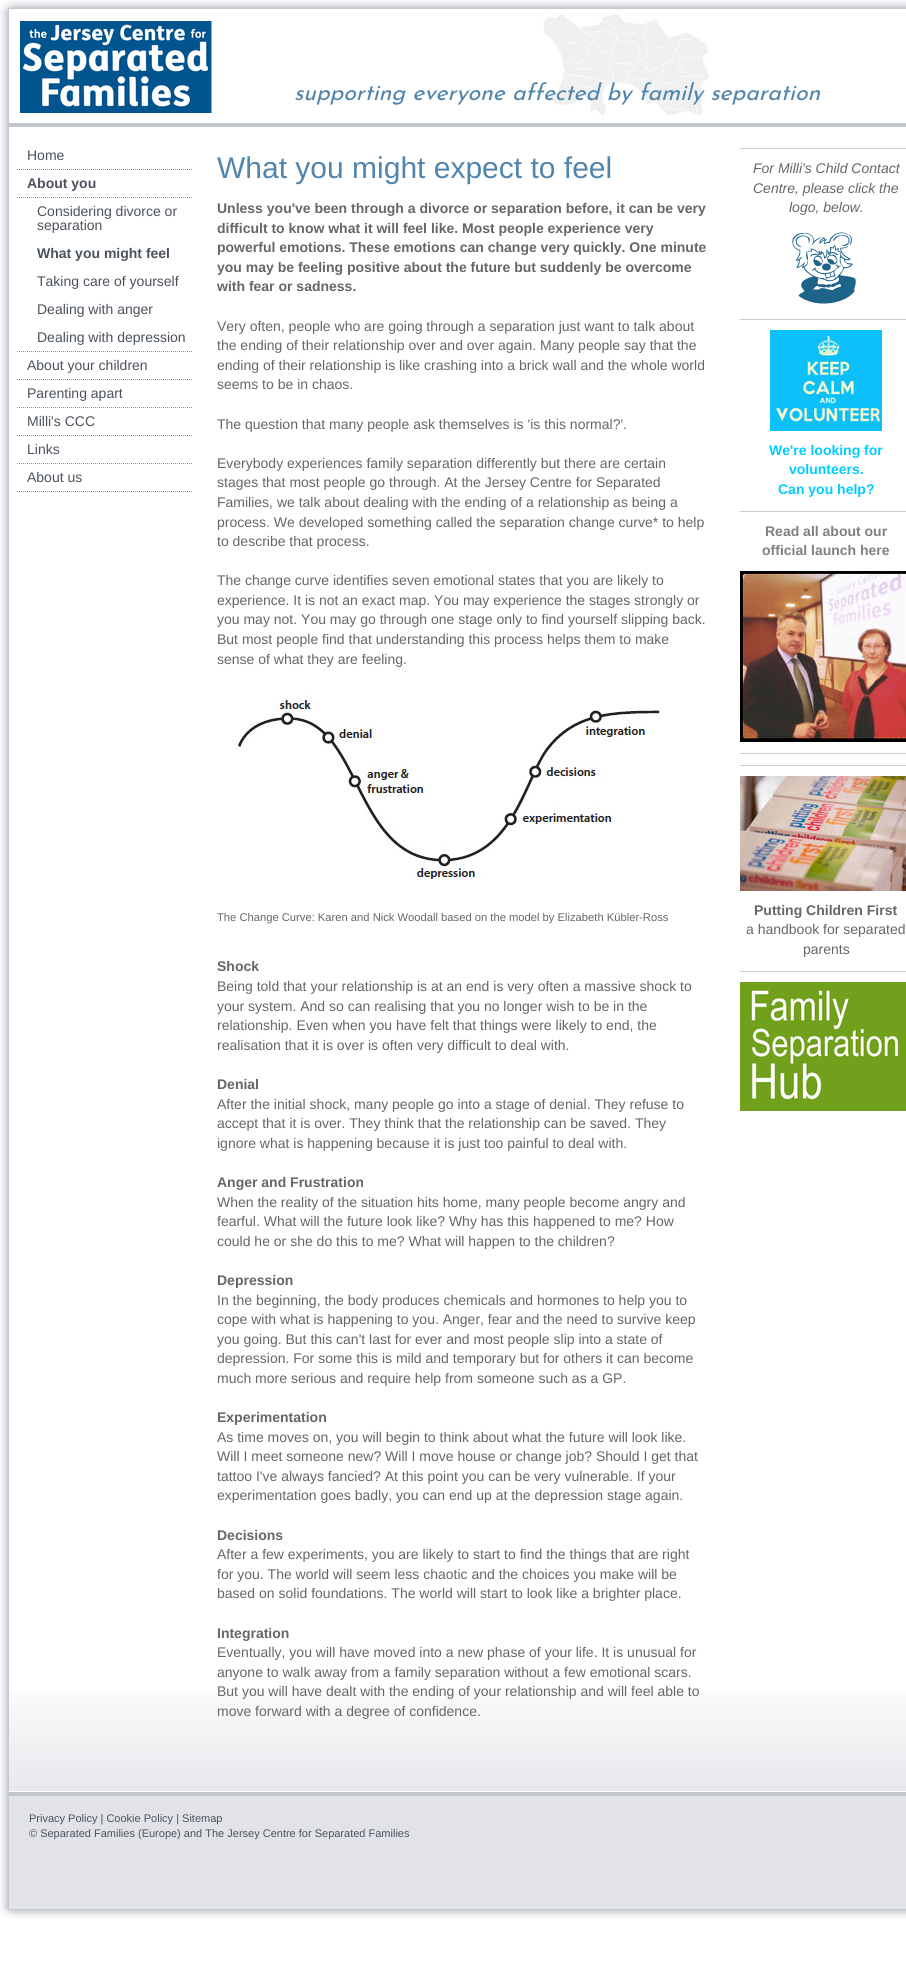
import math
import cairo

surface = cairo.ImageSurface(cairo.Format.RGB24, 906, 1988)
ctx = cairo.Context(surface)
options = cairo.FontOptions()
options.set_hint_metrics(cairo.HintMetrics.OFF)
options.set_hint_style(cairo.HintStyle.NONE)
ctx.set_font_options(options)
ctx.set_miter_limit(4)


def ink(r, g, b):
    ctx.set_source_rgb(r / 255, g / 255, b / 255)


def write(x, y, s, family, size, color, bold=False, italic=False):
    ctx.select_font_face(family, cairo.FontSlant.ITALIC if italic else cairo.FontSlant.NORMAL, cairo.FontWeight.BOLD if bold else cairo.FontWeight.NORMAL)
    ctx.set_font_size(size)
    ink(*color)
    ctx.move_to(x, y)
    ctx.show_text(s)


def block(x, y, w, h, *color):
    ink(*color)
    ctx.rectangle(x, y, w, h)
    ctx.fill()


def paste(path, x, y, w, h):
    ctx.save()
    ctx.set_source_surface(cairo.ImageSurface.create_from_png(path), x, y)
    ctx.rectangle(x, y, w, h)
    ctx.fill()
    ctx.restore()


s1 = dict(family="Josefin Sans Thin", size=23, color=(82, 133, 172), italic=True)
s2 = dict(family="Liberation Sans", size=14, color=(75, 82, 92))
s3 = dict(family="Liberation Sans", size=14, color=(75, 82, 92), bold=True)
s4 = dict(family="Liberation Sans", size=30, color=(82, 133, 172))
s5 = dict(family="Liberation Sans", size=14, color=(102, 102, 102), bold=True)
s6 = dict(family="Liberation Sans", size=14, color=(102, 102, 102))
s7 = dict(family="Liberation Sans", size=11.2, color=(102, 102, 102))
s8 = dict(family="Liberation Sans", size=14, color=(102, 102, 102), italic=True)
s9 = dict(family="Liberation Sans", size=14, color=(0, 204, 255), bold=True)
s10 = dict(family="Liberation Sans", size=14, color=(128, 128, 128), bold=True)
s11 = dict(family="Liberation Sans", size=11, color=(75, 82, 92))

ink(255, 255, 255)
ctx.paint()
paste("pic1.png", 0, 0, 906, 11)
paste("pic2.png", 0, 11, 9, 1898)
block(9, 123, 897, 4, 194, 198, 205)
paste("pic3.png", 20, 21, 192, 92)
paste("pic4.png", 543, 14, 166, 102)
write(294, 100, "supporting everyone affected by family separation", **s1)
paste("pic5.png", 9, 1692, 897, 99)
paste("pic6.png", 17, 169, 175, 1)
write(27, 160, "Home", **s2)
paste("pic6.png", 17, 197, 175, 1)
write(27, 188, "About you", **s3)
paste("pic6.png", 17, 351, 175, 1)
write(37, 216, "Considering divorce or", **s2)
write(37, 230, "separation", **s2)
write(37, 258, "What you might feel", **s3)
write(37, 286, "Taking care of yourself", **s2)
write(37, 314, "Dealing with anger", **s2)
write(37, 342, "Dealing with depression", **s2)
paste("pic6.png", 17, 379, 175, 1)
write(27, 370, "About your children", **s2)
paste("pic6.png", 17, 407, 175, 1)
write(27, 398, "Parenting apart", **s2)
paste("pic6.png", 17, 435, 175, 1)
write(27, 426, "Milli's CCC", **s2)
paste("pic6.png", 17, 463, 175, 1)
write(27, 454, "Links", **s2)
paste("pic6.png", 17, 491, 175, 1)
write(27, 482, "About us", **s2)
write(217, 178, "What you might expect to feel", **s4)
write(217, 213, "Unless you've been through a divorce or separation before, it can be very", **s5)
write(217, 233, "difficult to know what it will feel like. Most people experience very", **s5)
write(217, 252, "powerful emotions. These emotions can change very quickly. One minute", **s5)
write(217, 272, "you may be feeling positive about the future but suddenly be overcome", **s5)
write(217, 291, "with fear or sadness.", **s5)
write(217, 331, "Very often, people who are going through a separation just want to talk about", **s6)
write(217, 350, "the ending of their relationship over and over again. Many people say that the", **s6)
write(217, 370, "ending of their relationship is like crashing into a brick wall and the whole world", **s6)
write(217, 389, "seems to be in chaos.", **s6)
write(217, 429, "The question that many people ask themselves is 'is this normal?'.", **s6)
write(217, 468, "Everybody experiences family separation differently but there are certain", **s6)
write(217, 487, "stages that most people go through. At the Jersey Centre for Separated", **s6)
write(217, 507, "Families, we talk about dealing with the ending of a relationship as being a", **s6)
write(217, 527, "process. We developed something called the separation change curve* to help", **s6)
write(217, 546, "to describe that process.", **s6)
write(217, 585, "The change curve identifies seven emotional states that you are likely to", **s6)
write(217, 605, "experience. It is not an exact map. You may experience the stages strongly or", **s6)
write(217, 624, "you may not. You may go through one stage only to find yourself slipping back.", **s6)
write(217, 644, "But most people find that understanding this process helps them to make", **s6)
write(217, 664, "sense of what they are feeling.", **s6)
paste("pic7.png", 234, 695, 428, 184)
write(217, 921, "The Change Curve: Karen and Nick Woodall based on the model by Elizabeth Kübler-Ross", **s7)
write(217, 971, "Shock", **s5)
write(217, 991, "Being told that your relationship is at an end is very often a massive shock to", **s6)
write(217, 1011, "your system. And so can realising that you no longer wish to be in the", **s6)
write(217, 1030, "relationship. Even when you have felt that things were likely to end, the", **s6)
write(217, 1050, "realisation that it is over is often very difficult to deal with.", **s6)
write(217, 1089, "Denial", **s5)
write(217, 1109, "After the initial shock, many people go into a stage of denial. They refuse to", **s6)
write(217, 1128, "accept that it is over. They think that the relationship can be saved. They", **s6)
write(217, 1148, "ignore what is happening because it is just too painful to deal with.", **s6)
write(217, 1187, "Anger and Frustration", **s5)
write(217, 1207, "When the reality of the situation hits home, many people become angry and", **s6)
write(217, 1226, "fearful. What will the future look like? Why has this happened to me? How", **s6)
write(217, 1246, "could he or she do this to me? What will happen to the children?", **s6)
write(217, 1285, "Depression", **s5)
write(217, 1305, "In the beginning, the body produces chemicals and hormones to help you to", **s6)
write(217, 1324, "cope with what is happening to you. Anger, fear and the need to survive keep", **s6)
write(217, 1344, "you going. But this can't last for ever and most people slip into a state of", **s6)
write(217, 1363, "depression. For some this is mild and temporary but for others it can become", **s6)
write(217, 1383, "much more serious and require help from someone such as a GP.", **s6)
write(217, 1422, "Experimentation", **s5)
write(217, 1442, "As time moves on, you will begin to think about what the future will look like.", **s6)
write(217, 1461, "Will I meet someone new? Will I move house or change job? Should I get that", **s6)
write(217, 1481, "tattoo I've always fancied? At this point you can be very vulnerable. If your", **s6)
write(217, 1500, "experimentation goes badly, you can end up at the depression stage again.", **s6)
write(217, 1540, "Decisions", **s5)
write(217, 1559, "After a few experiments, you are likely to start to find the things that are right", **s6)
write(217, 1579, "for you. The world will seem less chaotic and the choices you make will be", **s6)
write(217, 1598, "based on solid foundations. The world will start to look like a brighter place.", **s6)
write(217, 1638, "Integration", **s5)
write(217, 1657, "Eventually, you will have moved into a new phase of your life. It is unusual for", **s6)
write(217, 1677, "anyone to walk away from a family separation without a few emotional scars.", **s6)
write(217, 1696, "But you will have dealt with the ending of your relationship and will feel able to", **s6)
write(217, 1716, "move forward with a degree of confidence.", **s6)
block(740, 148, 166, 1, 204, 204, 204)
write(753, 173, "For Milli's Child Contact", **s8)
write(753, 193, "Centre, please click the", **s8)
write(789, 212, "logo, below.", **s8)
paste("pic8.png", 792, 232, 64, 72)
block(740, 319, 166, 1, 204, 204, 204)
paste("pic9.png", 770, 330, 112, 101)
write(769, 455, "We're looking for", **s9)
write(789, 474, "volunteers.", **s9)
write(778, 494, "Can you help?", **s9)
block(740, 511, 166, 1, 204, 204, 204)
write(765, 536, "Read all about our", **s10)
write(762, 555, "official launch here", **s10)
paste("pic10.png", 740, 571, 166, 171)
block(740, 753, 166, 1, 204, 204, 204)
block(740, 765, 166, 1, 204, 204, 204)
paste("pic11.png", 740, 776, 166, 115)
write(754, 915, "Putting Children First", **s5)
write(746, 934, "a handbook for separated", **s6)
write(803, 954, "parents", **s6)
block(740, 971, 166, 1, 204, 204, 204)
paste("pic12.png", 740, 982, 166, 129)
paste("pic13.png", 9, 1792, 897, 117)
write(29, 1822, "Privacy Policy | Cookie Policy | Sitemap", **s11)
write(29, 1837, "© Separated Families (Europe) and The Jersey Centre for Separated Families", **s11)
paste("pic14.png", 0, 1909, 906, 10)
surface.write_to_png("screenshot.png")
